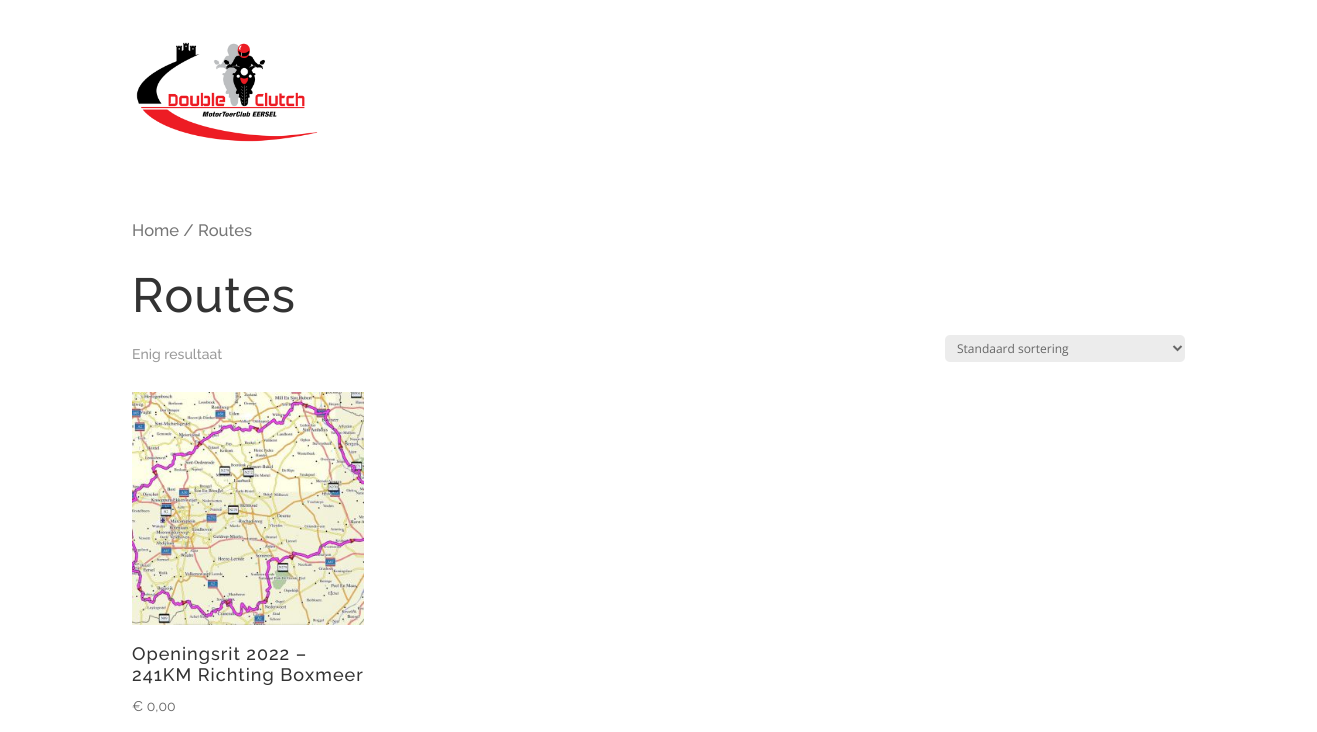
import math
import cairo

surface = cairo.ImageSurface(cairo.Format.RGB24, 1317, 732)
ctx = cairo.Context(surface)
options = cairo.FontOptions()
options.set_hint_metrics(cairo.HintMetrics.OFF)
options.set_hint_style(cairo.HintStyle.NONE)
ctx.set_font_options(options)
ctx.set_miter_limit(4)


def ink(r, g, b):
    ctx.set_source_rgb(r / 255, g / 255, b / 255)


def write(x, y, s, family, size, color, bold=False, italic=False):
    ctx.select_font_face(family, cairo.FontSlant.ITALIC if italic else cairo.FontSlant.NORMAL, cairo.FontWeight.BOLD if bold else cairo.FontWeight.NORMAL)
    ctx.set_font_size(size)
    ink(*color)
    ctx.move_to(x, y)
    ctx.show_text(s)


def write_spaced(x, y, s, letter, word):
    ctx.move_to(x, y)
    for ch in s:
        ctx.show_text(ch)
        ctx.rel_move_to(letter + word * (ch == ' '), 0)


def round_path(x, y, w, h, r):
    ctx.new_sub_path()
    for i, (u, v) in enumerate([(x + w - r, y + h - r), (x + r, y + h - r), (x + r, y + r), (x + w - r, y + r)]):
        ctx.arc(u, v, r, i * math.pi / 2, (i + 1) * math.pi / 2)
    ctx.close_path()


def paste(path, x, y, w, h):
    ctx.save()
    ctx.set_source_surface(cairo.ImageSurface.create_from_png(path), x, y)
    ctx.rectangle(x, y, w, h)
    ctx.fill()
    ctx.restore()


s1 = dict(family="Raleway Medium", size=16.5, color=(118, 118, 118))
s2 = dict(family="Raleway Medium", size=14, color=(153, 153, 153))
s3 = dict(family="Open Sans", size=12, color=(102, 102, 102))
s4 = dict(family="Raleway", size=14, color=(102, 102, 102))

ink(255, 255, 255)
ctx.paint()
paste("pic1.png", 136, 42, 182, 100)
write(132, 236, "Home / Routes", **s1)
ctx.set_font_size(48)
ink(51, 51, 51)
write_spaced(132, 312, "Routes", 1, 0)
write(132, 359, "Enig resultaat", **s2)
ink(236, 236, 236)
round_path(945, 335, 240, 27, 5)
ctx.fill()
ctx.new_path()
ctx.move_to(1173.5, 346)
ctx.line_to(1177.5, 350)
ctx.line_to(1181.5, 346)
ink(102, 102, 102)
ctx.stroke()
write(957, 353, "Standaard sortering", **s3)
paste("pic2.png", 132, 392, 232, 233)
ctx.select_font_face("Raleway Medium")
ctx.set_font_size(18)
ink(51, 51, 51)
write_spaced(132, 660, "Openingsrit 2022 –", 1, 0)
write_spaced(132, 681, "241KM Richting Boxmeer", 1, 0)
write(132, 711, "€ 0,00", **s4)
surface.write_to_png("screenshot.png")
